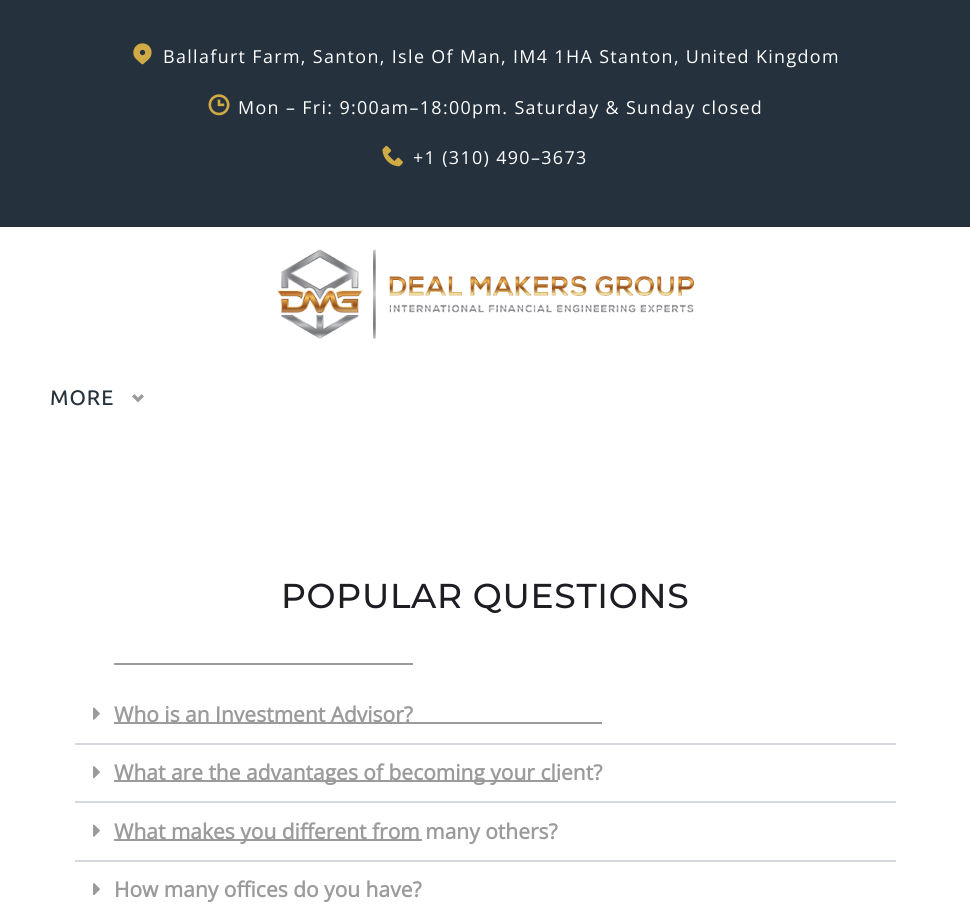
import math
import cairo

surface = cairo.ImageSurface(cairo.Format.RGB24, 970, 911)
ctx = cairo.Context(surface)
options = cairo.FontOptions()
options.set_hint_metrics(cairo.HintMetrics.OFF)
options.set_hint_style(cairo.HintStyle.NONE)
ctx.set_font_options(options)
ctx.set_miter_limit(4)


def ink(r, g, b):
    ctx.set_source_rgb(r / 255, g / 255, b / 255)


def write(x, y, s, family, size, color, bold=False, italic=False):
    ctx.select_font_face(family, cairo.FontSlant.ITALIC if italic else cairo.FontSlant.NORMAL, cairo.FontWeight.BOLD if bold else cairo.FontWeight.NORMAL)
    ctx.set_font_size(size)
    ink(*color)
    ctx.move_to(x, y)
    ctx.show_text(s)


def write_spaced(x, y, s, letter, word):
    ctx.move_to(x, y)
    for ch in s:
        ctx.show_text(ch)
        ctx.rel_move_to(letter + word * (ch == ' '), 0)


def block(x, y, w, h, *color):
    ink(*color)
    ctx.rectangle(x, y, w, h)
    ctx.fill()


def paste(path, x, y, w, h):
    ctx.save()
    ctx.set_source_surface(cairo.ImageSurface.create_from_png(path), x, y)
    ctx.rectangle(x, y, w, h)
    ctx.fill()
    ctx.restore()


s1 = dict(family="Open Sans", size=21, color=(155, 155, 155), bold=True)

ink(255, 255, 255)
ctx.paint()
block(0, 0, 970, 227, 37, 49, 61)
paste("pic1.png", 133, 43, 19, 22)
ctx.select_font_face("Open Sans")
ctx.set_font_size(17.9)
ink(255, 255, 255)
write_spaced(163, 63, "Ballafurt Farm, Santon, Isle Of Man, IM4 1HA Stanton, United Kingdom", 1.35, 0)
paste("pic2.png", 208, 94, 22, 22)
write_spaced(238, 114, "Mon – Fri: 9:00am–18:00pm. Saturday & Sunday closed", 1.35, 0)
paste("pic3.png", 382, 145, 21, 22)
write_spaced(413, 164, "+1 (310) 490–3673", 1.35, 0)
paste("pic4.png", 276, 249, 418, 90)
ctx.select_font_face("Ubuntu Medium")
ctx.set_font_size(21)
ink(37, 49, 61)
write_spaced(50, 405, "MORE", 1, 0)
paste("pic5.png", 132, 394, 12, 9)
ctx.select_font_face("Montserrat Medium")
ctx.set_font_size(34.5)
ink(30, 29, 36)
write_spaced(281, 608, "POPULAR QUESTIONS", 0.7, 0)
block(75, 743, 821, 2, 213, 216, 220)
paste("pic6.png", 93, 707, 7, 13)
write(114, 722, "Who is an Investment Advisor?", **s1)
block(114, 663, 299, 2, 155, 155, 155)
block(75, 801, 821, 2, 213, 216, 220)
paste("pic7.png", 93, 766, 7, 13)
write(114, 780, "What are the advantages of becoming your client?", **s1)
block(114, 722, 488, 2, 155, 155, 155)
block(75, 860, 821, 2, 213, 216, 220)
paste("pic6.png", 93, 824, 7, 13)
write(114, 839, "What makes you different from many others?", **s1)
block(114, 780, 444, 2, 155, 155, 155)
paste("pic7.png", 93, 883, 7, 13)
write(114, 897, "How many offices do you have?", **s1)
block(114, 839, 308, 2, 155, 155, 155)
surface.write_to_png("screenshot.png")
